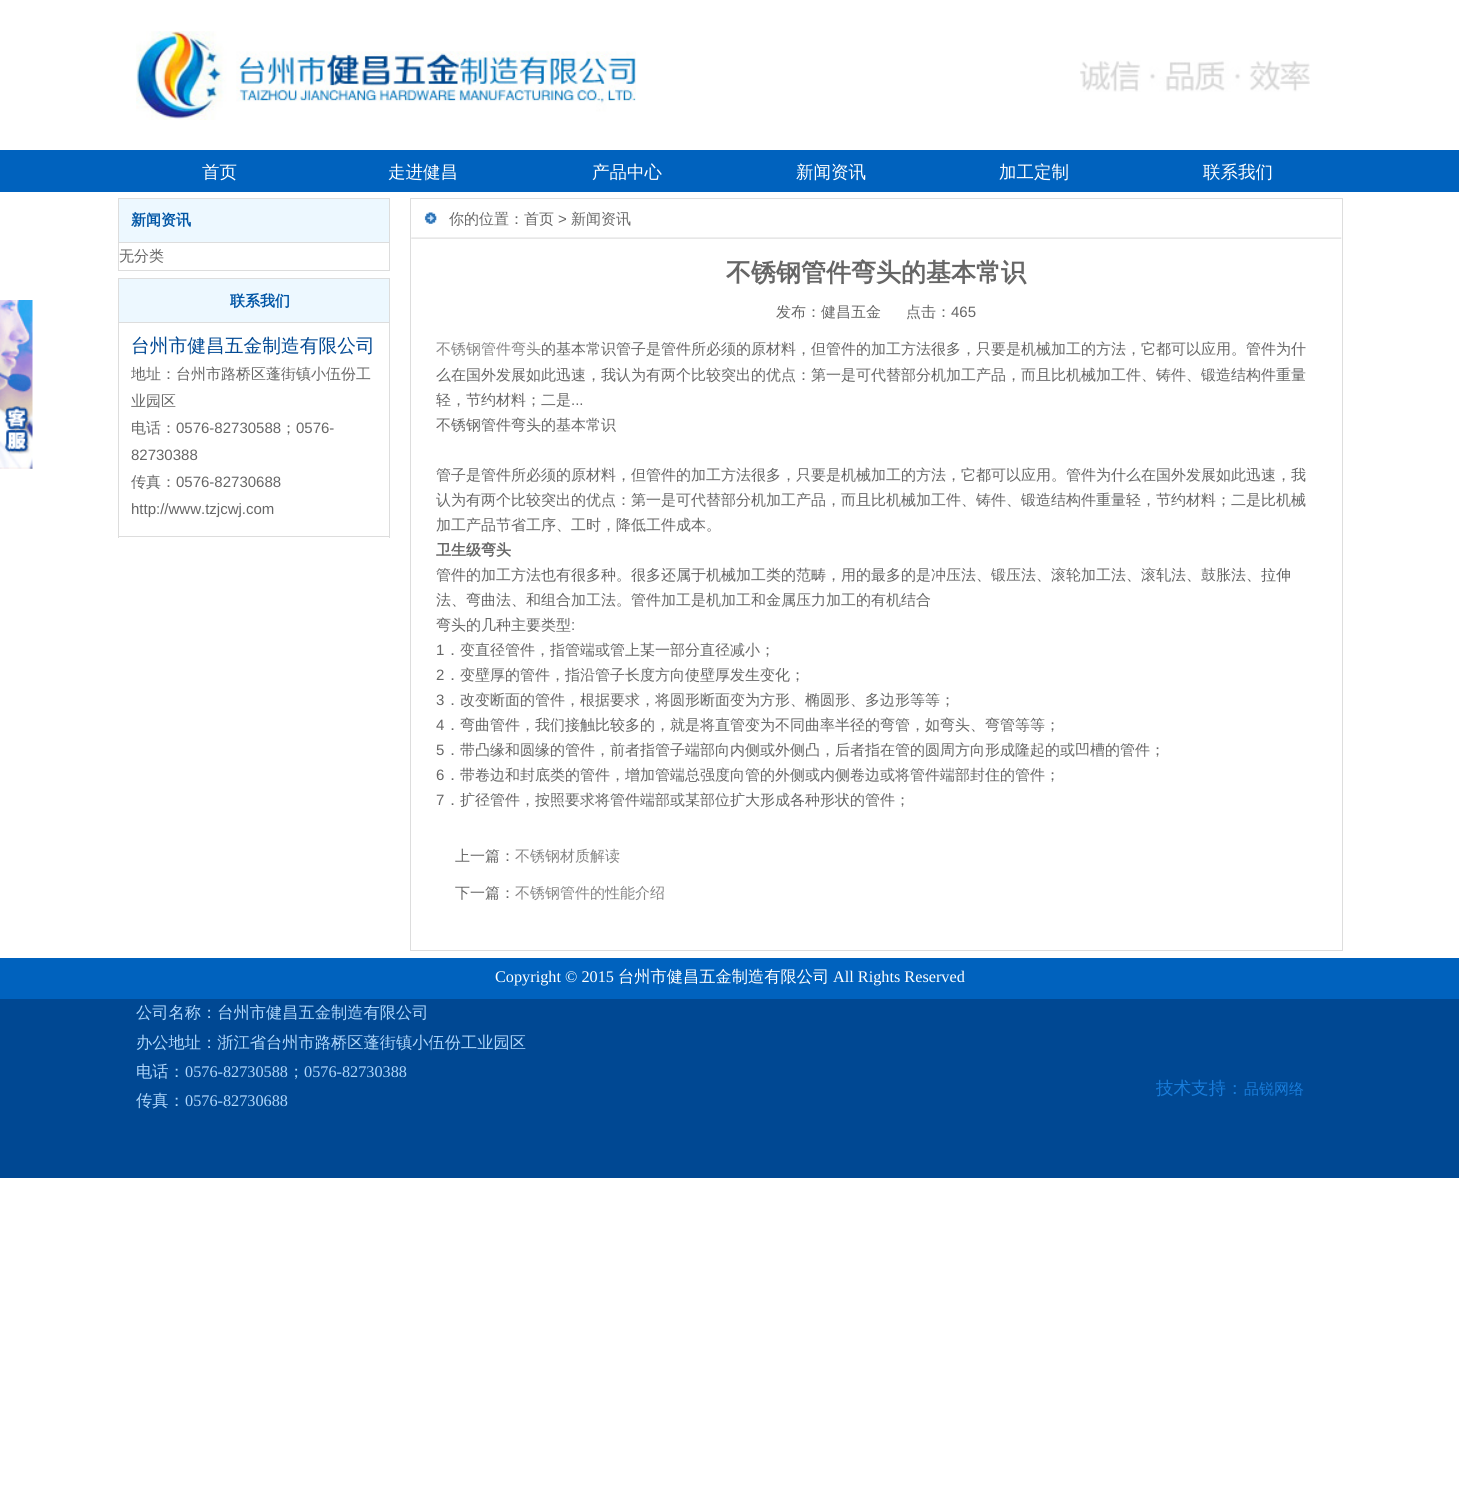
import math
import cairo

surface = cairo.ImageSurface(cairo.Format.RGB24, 1459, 1502)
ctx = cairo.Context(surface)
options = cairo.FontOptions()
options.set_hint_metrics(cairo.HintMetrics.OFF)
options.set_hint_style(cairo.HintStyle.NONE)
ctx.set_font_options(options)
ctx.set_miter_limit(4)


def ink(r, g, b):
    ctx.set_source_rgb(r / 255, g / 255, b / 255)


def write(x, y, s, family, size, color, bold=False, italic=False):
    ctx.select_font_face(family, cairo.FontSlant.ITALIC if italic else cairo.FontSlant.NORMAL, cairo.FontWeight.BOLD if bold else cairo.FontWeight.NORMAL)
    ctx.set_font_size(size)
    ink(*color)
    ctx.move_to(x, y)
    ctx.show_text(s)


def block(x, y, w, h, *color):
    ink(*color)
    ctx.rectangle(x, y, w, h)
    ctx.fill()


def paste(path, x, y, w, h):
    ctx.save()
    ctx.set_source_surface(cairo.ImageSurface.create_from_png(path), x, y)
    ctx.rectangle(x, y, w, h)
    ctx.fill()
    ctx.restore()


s1 = dict(family="WenQuanYi Zen Hei Medium", size=17.5, color=(255, 255, 255))
s2 = dict(family="WenQuanYi Zen Hei", size=15, color=(0, 85, 165), bold=True)
s3 = dict(family="WenQuanYi Zen Hei Medium", size=15, color=(102, 102, 102))
s4 = dict(family="WenQuanYi Zen Hei Medium", size=18.75, color=(0, 72, 147))
s5 = dict(family="Liberation Sans", size=15, color=(102, 102, 102))
s6 = dict(family="WenQuanYi Zen Hei", size=25, color=(102, 102, 102), bold=True)
s7 = dict(family="WenQuanYi Zen Hei Medium", size=15, color=(134, 134, 134))
s8 = dict(family="WenQuanYi Zen Hei", size=15, color=(102, 102, 102), bold=True)
s9 = dict(family="Liberation Serif", size=16.25, color=(255, 255, 255))
s10 = dict(family="WenQuanYi Zen Hei Medium", size=16.25, color=(255, 255, 255))
s11 = dict(family="WenQuanYi Zen Hei Medium", size=16.25, color=(175, 215, 252))
s12 = dict(family="Liberation Serif", size=16.25, color=(175, 215, 252))
s13 = dict(family="WenQuanYi Zen Hei Medium", size=17.5, color=(24, 124, 218))
s14 = dict(family="WenQuanYi Zen Hei Medium", size=15, color=(24, 124, 218))

ink(255, 255, 255)
ctx.paint()
paste("pic1.png", 136, 31, 500, 89)
paste("pic2.png", 1080, 60, 230, 32)
block(0, 150, 1459, 42, 0, 98, 190)
write(202, 178, "首页", **s1)
write(388, 178, "走进健昌", **s1)
write(592, 178, "产品中心", **s1)
write(796, 178, "新闻资讯", **s1)
write(999, 178, "加工定制", **s1)
write(1203, 178, "联系我们", **s1)
ink(237, 248, 255)
ctx.rectangle(118.5, 198.5, 271, 44)
ctx.fill_preserve()
ink(221, 221, 221)
ctx.set_line_width(1)
ctx.stroke()
write(131, 225, "新闻资讯", **s2)
block(389, 243, 1, 28, 221, 221, 221)
block(118, 270, 272, 1, 221, 221, 221)
block(118, 243, 1, 28, 221, 221, 221)
write(119, 261, "无分类", **s3)
ink(237, 248, 255)
ctx.rectangle(118.5, 278.5, 271, 44)
ctx.fill_preserve()
ink(221, 221, 221)
ctx.stroke()
write(230, 306, "联系我们", **s2)
block(389, 323, 1, 215, 221, 221, 221)
block(118, 536, 272, 1, 221, 221, 221)
block(118, 323, 1, 215, 221, 221, 221)
write(131, 352, "台州市健昌五金制造有限公司", **s4)
write(131, 379, "地址：台州市路桥区蓬街镇小伍份工", **s3)
write(131, 406, "业园区", **s3)
write(131, 433, "电话：", **s3)
write(176, 433, "0576-82730588", **s5)
write(281, 433, "；", **s3)
write(296, 433, "0576-", **s5)
write(131, 460, "82730388", **s5)
write(131, 487, "传真：", **s3)
write(176, 487, "0576-82730688", **s5)
write(131, 514, "http://www.tzjcwj.com", **s5)
ctx.rectangle(410.5, 198.5, 932, 752)
ink(221, 221, 221)
ctx.stroke()
paste("pic3.png", 411, 237, 931, 2)
paste("pic4.png", 424, 212, 13, 12)
write(449, 224, "你的位置：首页", **s3)
write(558, 224, ">", **s5)
write(571, 224, "新闻资讯", **s3)
write(726, 281, "不锈钢管件弯头的基本常识", **s6)
write(776, 317, "发布：健昌五金", **s3)
write(906, 317, "点击：", **s3)
write(951, 317, "465", **s5)
write(436, 354, "不锈钢管件弯头", **s7)
write(541, 354, "的基本常识管子是管件所必须的原材料，但管件的加工方法很多，只要是机械加工的方法，它都可以应用。管件为什", **s3)
write(436, 380, "么在国外发展如此迅速，我认为有两个比较突出的优点：第一是可代替部分机加工产品，而且比机械加工件、铸件、锻造结构件重量", **s3)
write(436, 405, "轻，节约材料；二是", **s3)
write(571, 405, "...", **s5)
write(436, 430, "不锈钢管件弯头的基本常识", **s3)
write(436, 480, "管子是管件所必须的原材料，但管件的加工方法很多，只要是机械加工的方法，它都可以应用。管件为什么在国外发展如此迅速，我", **s3)
write(436, 505, "认为有两个比较突出的优点：第一是可代替部分机加工产品，而且比机械加工件、铸件、锻造结构件重量轻，节约材料；二是比机械", **s3)
write(436, 530, "加工产品节省工序、工时，降低工件成本。", **s3)
write(436, 555, "卫生级弯头", **s8)
write(436, 580, "管件的加工方法也有很多种。很多还属于机械加工类的范畴，用的最多的是冲压法、锻压法、滚轮加工法、滚轧法、鼓胀法、拉伸", **s3)
write(436, 605, "法、弯曲法、和组合加工法。管件加工是机加工和金属压力加工的有机结合", **s3)
write(436, 630, "弯头的几种主要类型", **s3)
write(571, 630, ":", **s5)
write(436, 655, "1", **s5)
write(445, 655, "．变直径管件，指管端或管上某一部分直径减小；", **s3)
write(436, 680, "2", **s5)
write(445, 680, "．变壁厚的管件，指沿管子长度方向使壁厚发生变化；", **s3)
write(436, 705, "3", **s5)
write(445, 705, "．改变断面的管件，根据要求，将圆形断面变为方形、椭圆形、多边形等等；", **s3)
write(436, 730, "4", **s5)
write(445, 730, "．弯曲管件，我们接触比较多的，就是将直管变为不同曲率半径的弯管，如弯头、弯管等等；", **s3)
write(436, 755, "5", **s5)
write(445, 755, "．带凸缘和圆缘的管件，前者指管子端部向内侧或外侧凸，后者指在管的圆周方向形成隆起的或凹槽的管件；", **s3)
write(436, 780, "6", **s5)
write(445, 780, "．带卷边和封底类的管件，增加管端总强度向管的外侧或内侧卷边或将管件端部封住的管件；", **s3)
write(436, 805, "7", **s5)
write(445, 805, "．扩径管件，按照要求将管件端部或某部位扩大形成各种形状的管件；", **s3)
write(455, 861, "上一篇：", **s3)
write(515, 861, "不锈钢材质解读", **s7)
write(455, 898, "下一篇：", **s3)
write(515, 898, "不锈钢管件的性能介绍", **s7)
block(0, 999, 1459, 179, 0, 72, 147)
block(0, 958, 1459, 41, 0, 98, 190)
write(495, 982, "Copyright © 2015", **s9)
write(618, 982, "台州市健昌五金制造有限公司", **s10)
write(833, 982, "All Rights Reserved", **s9)
paste("pic5.png", 0, 300, 33, 169)
write(136, 1018, "公司名称：台州市健昌五金制造有限公司", **s11)
write(136, 1048, "办公地址：浙江省台州市路桥区蓬街镇小伍份工业园区", **s11)
write(136, 1077, "电话：", **s11)
write(185, 1077, "0576-82730588", **s12)
write(288, 1077, "；", **s11)
write(304, 1077, "0576-82730388", **s12)
write(136, 1106, "传真：", **s11)
write(185, 1106, "0576-82730688", **s12)
write(1156, 1094, "技术支持：", **s13)
write(1244, 1094, "品锐网络", **s14)
surface.write_to_png("screenshot.png")
